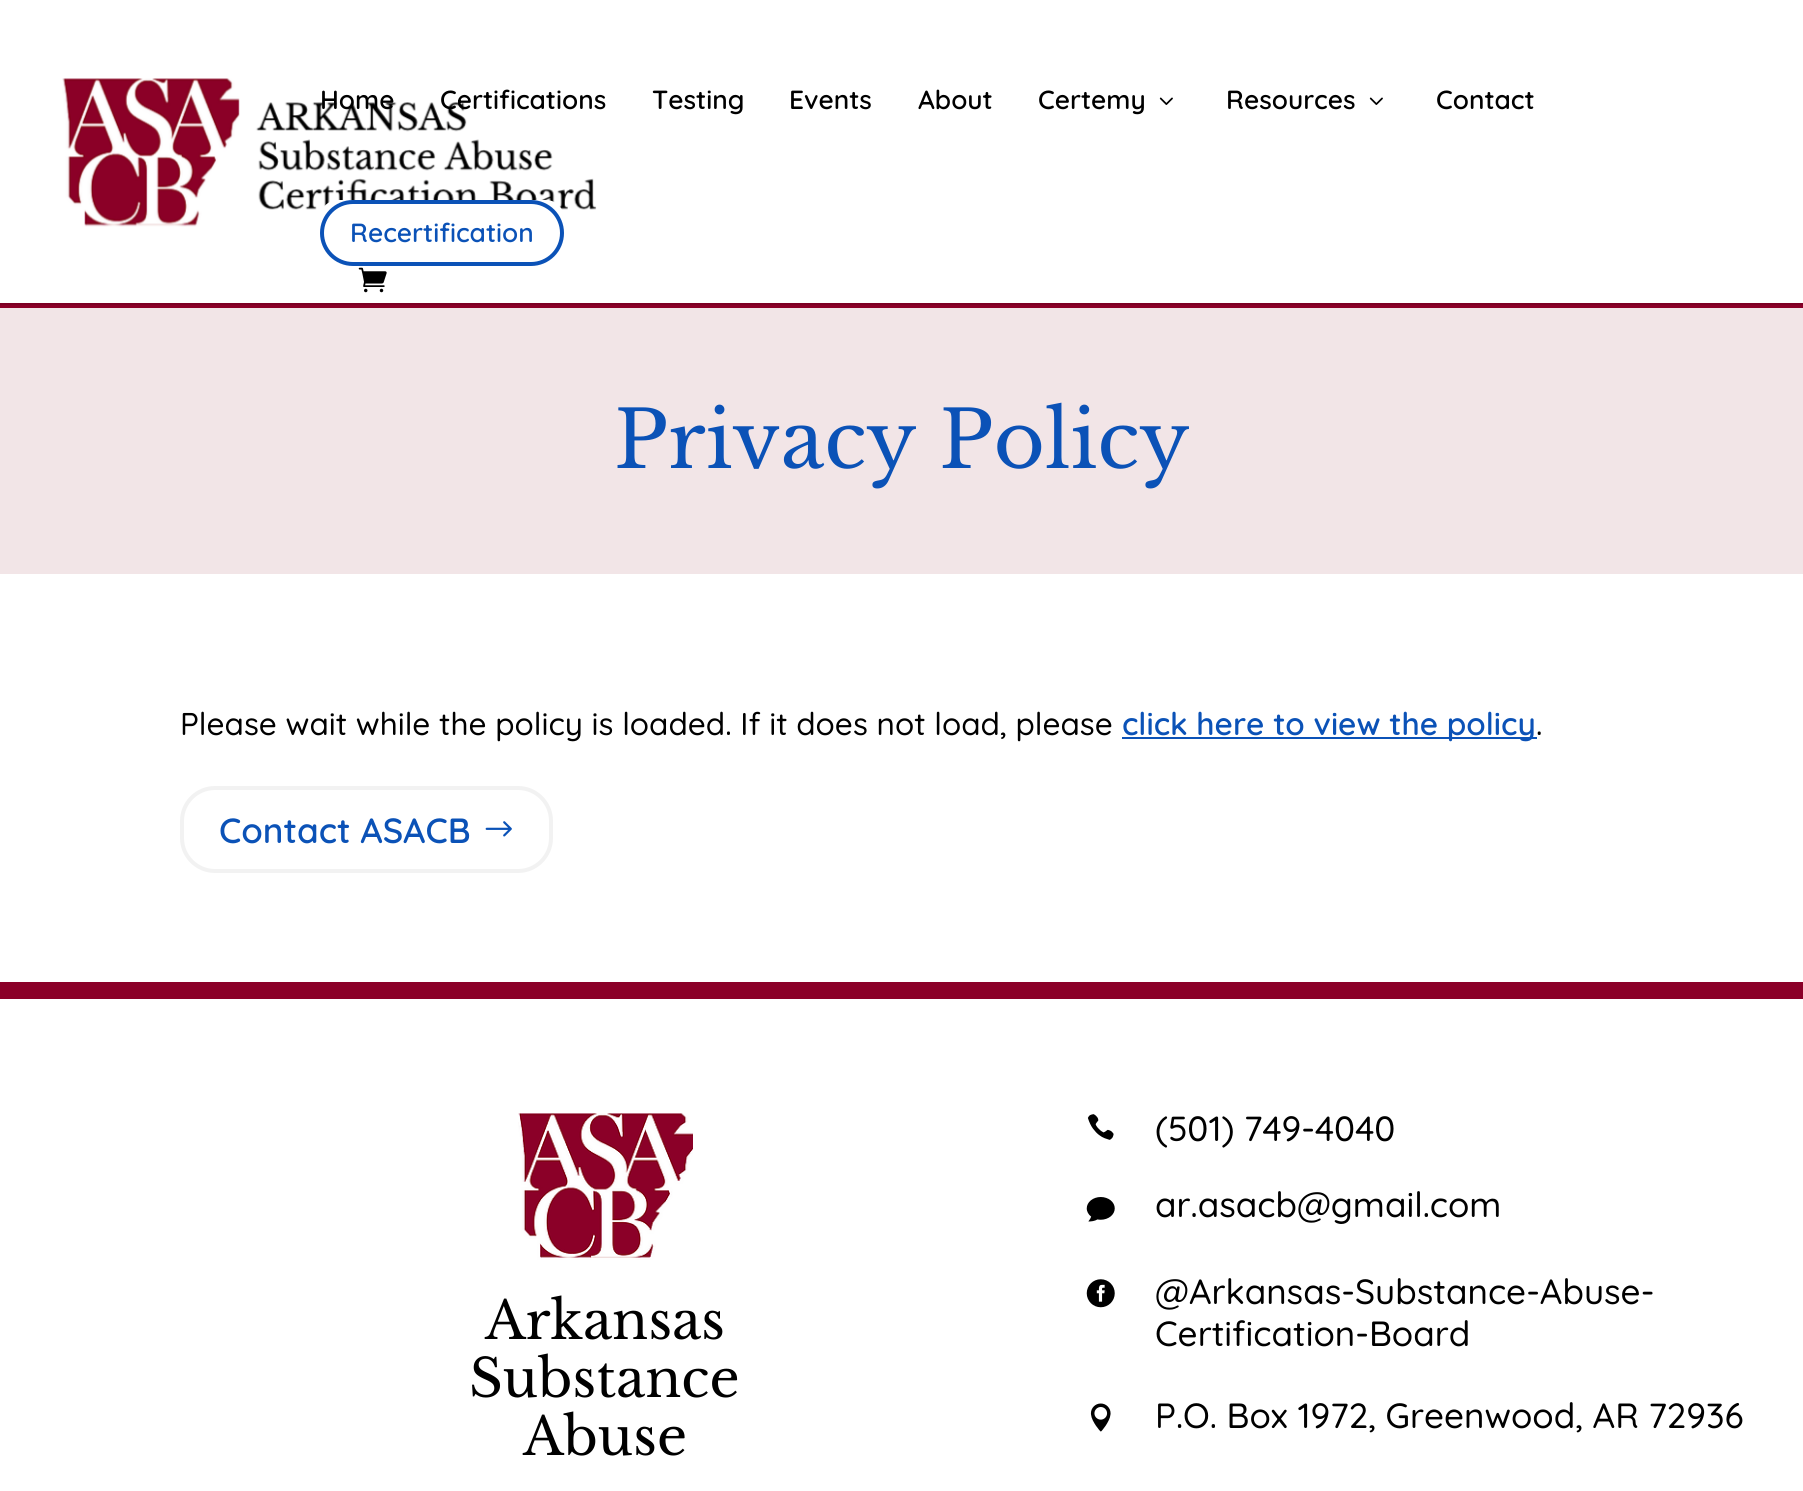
import math
import cairo

surface = cairo.ImageSurface(cairo.Format.RGB24, 1803, 1491)
ctx = cairo.Context(surface)
options = cairo.FontOptions()
options.set_hint_metrics(cairo.HintMetrics.OFF)
options.set_hint_style(cairo.HintStyle.NONE)
ctx.set_font_options(options)
ctx.set_miter_limit(4)


def ink(r, g, b):
    ctx.set_source_rgb(r / 255, g / 255, b / 255)


def write(x, y, s, family, size, color, bold=False, italic=False):
    ctx.select_font_face(family, cairo.FontSlant.ITALIC if italic else cairo.FontSlant.NORMAL, cairo.FontWeight.BOLD if bold else cairo.FontWeight.NORMAL)
    ctx.set_font_size(size)
    ink(*color)
    ctx.move_to(x, y)
    ctx.show_text(s)


def block(x, y, w, h, *color):
    ink(*color)
    ctx.rectangle(x, y, w, h)
    ctx.fill()


def round_path(x, y, w, h, r):
    ctx.new_sub_path()
    for i, (u, v) in enumerate([(x + w - r, y + h - r), (x + r, y + h - r), (x + r, y + r), (x + w - r, y + r)]):
        ctx.arc(u, v, r, i * math.pi / 2, (i + 1) * math.pi / 2)
    ctx.close_path()


def paste(path, x, y, w, h):
    ctx.save()
    ctx.set_source_surface(cairo.ImageSurface.create_from_png(path), x, y)
    ctx.rectangle(x, y, w, h)
    ctx.fill()
    ctx.restore()


s1 = dict(family="Quicksand SemiBold", size=26.25, color=(0, 0, 0))
s2 = dict(family="Quicksand SemiBold", size=26.25, color=(11, 82, 183))
s3 = dict(family="Libre Baskerville", size=78.75, color=(11, 82, 183))
s4 = dict(family="Quicksand Light", size=31.5, color=(0, 0, 0))
s5 = dict(family="Quicksand SemiBold", size=31.5, color=(11, 82, 183))
s6 = dict(family="Quicksand SemiBold", size=35, color=(11, 82, 183))
s7 = dict(family="Libre Baskerville", size=52.5, color=(0, 0, 0))
s8 = dict(family="Quicksand Light", size=35, color=(0, 0, 0))

ink(255, 255, 255)
ctx.paint()
block(0, 303, 1803, 2, 125, 0, 36)
paste("pic1.png", 62, 78, 535, 149)
write(320, 109, "Home", **s1)
write(440, 109, "Certifications", **s1)
write(652, 109, "Testing", **s1)
write(789, 109, "Events", **s1)
write(918, 109, "About", **s1)
write(1038, 109, "Certemy", **s1)
paste("pic2.png", 1159, 97, 14, 8)
write(1226, 109, "Resources", **s1)
paste("pic2.png", 1369, 97, 14, 8)
write(1436, 109, "Contact", **s1)
ink(255, 255, 255)
round_path(320, 200, 244, 66, 18)
ctx.fill()
round_path(322, 202, 240, 62, 31)
ink(11, 82, 183)
ctx.set_line_width(4)
ctx.stroke()
write(350, 242, "Recertification", **s2)
paste("pic3.png", 358, 267, 29, 26)
block(0, 308, 1803, 266, 242, 229, 231)
block(0, 305, 1803, 3, 139, 0, 40)
write(614, 468, "Privacy Policy", **s3)
write(180, 735, "Please wait while the policy is loaded. If it does not load, please", **s4)
block(1122, 737, 415, 2, 11, 82, 183)
write(1122, 735, "click here to view the policy", **s5)
write(1536, 735, ".", **s4)
round_path(182, 788, 369, 83, 33)
ink(242, 242, 242)
ctx.stroke()
write(219, 843, "Contact ASACB", **s6)
paste("pic4.png", 485, 821, 27, 16)
block(0, 982, 1803, 17, 139, 0, 40)
paste("pic5.png", 518, 1113, 175, 147)
write(485, 1339, "Arkansas", **s7)
write(469, 1397, "Substance", **s7)
write(523, 1455, "Abuse", **s7)
paste("pic6.png", 1087, 1114, 27, 26)
write(1155, 1141, "(501) 749-4040", **s8)
paste("pic7.png", 1086, 1197, 29, 25)
write(1155, 1217, "ar.asacb@gmail.com", **s8)
paste("pic8.png", 1086, 1279, 29, 29)
write(1155, 1304, "@Arkansas-Substance-Abuse-", **s8)
write(1155, 1346, "Certification-Board", **s8)
paste("pic9.png", 1090, 1403, 21, 29)
write(1155, 1428, "P.O. Box 1972, Greenwood, AR 72936", **s8)
surface.write_to_png("screenshot.png")
